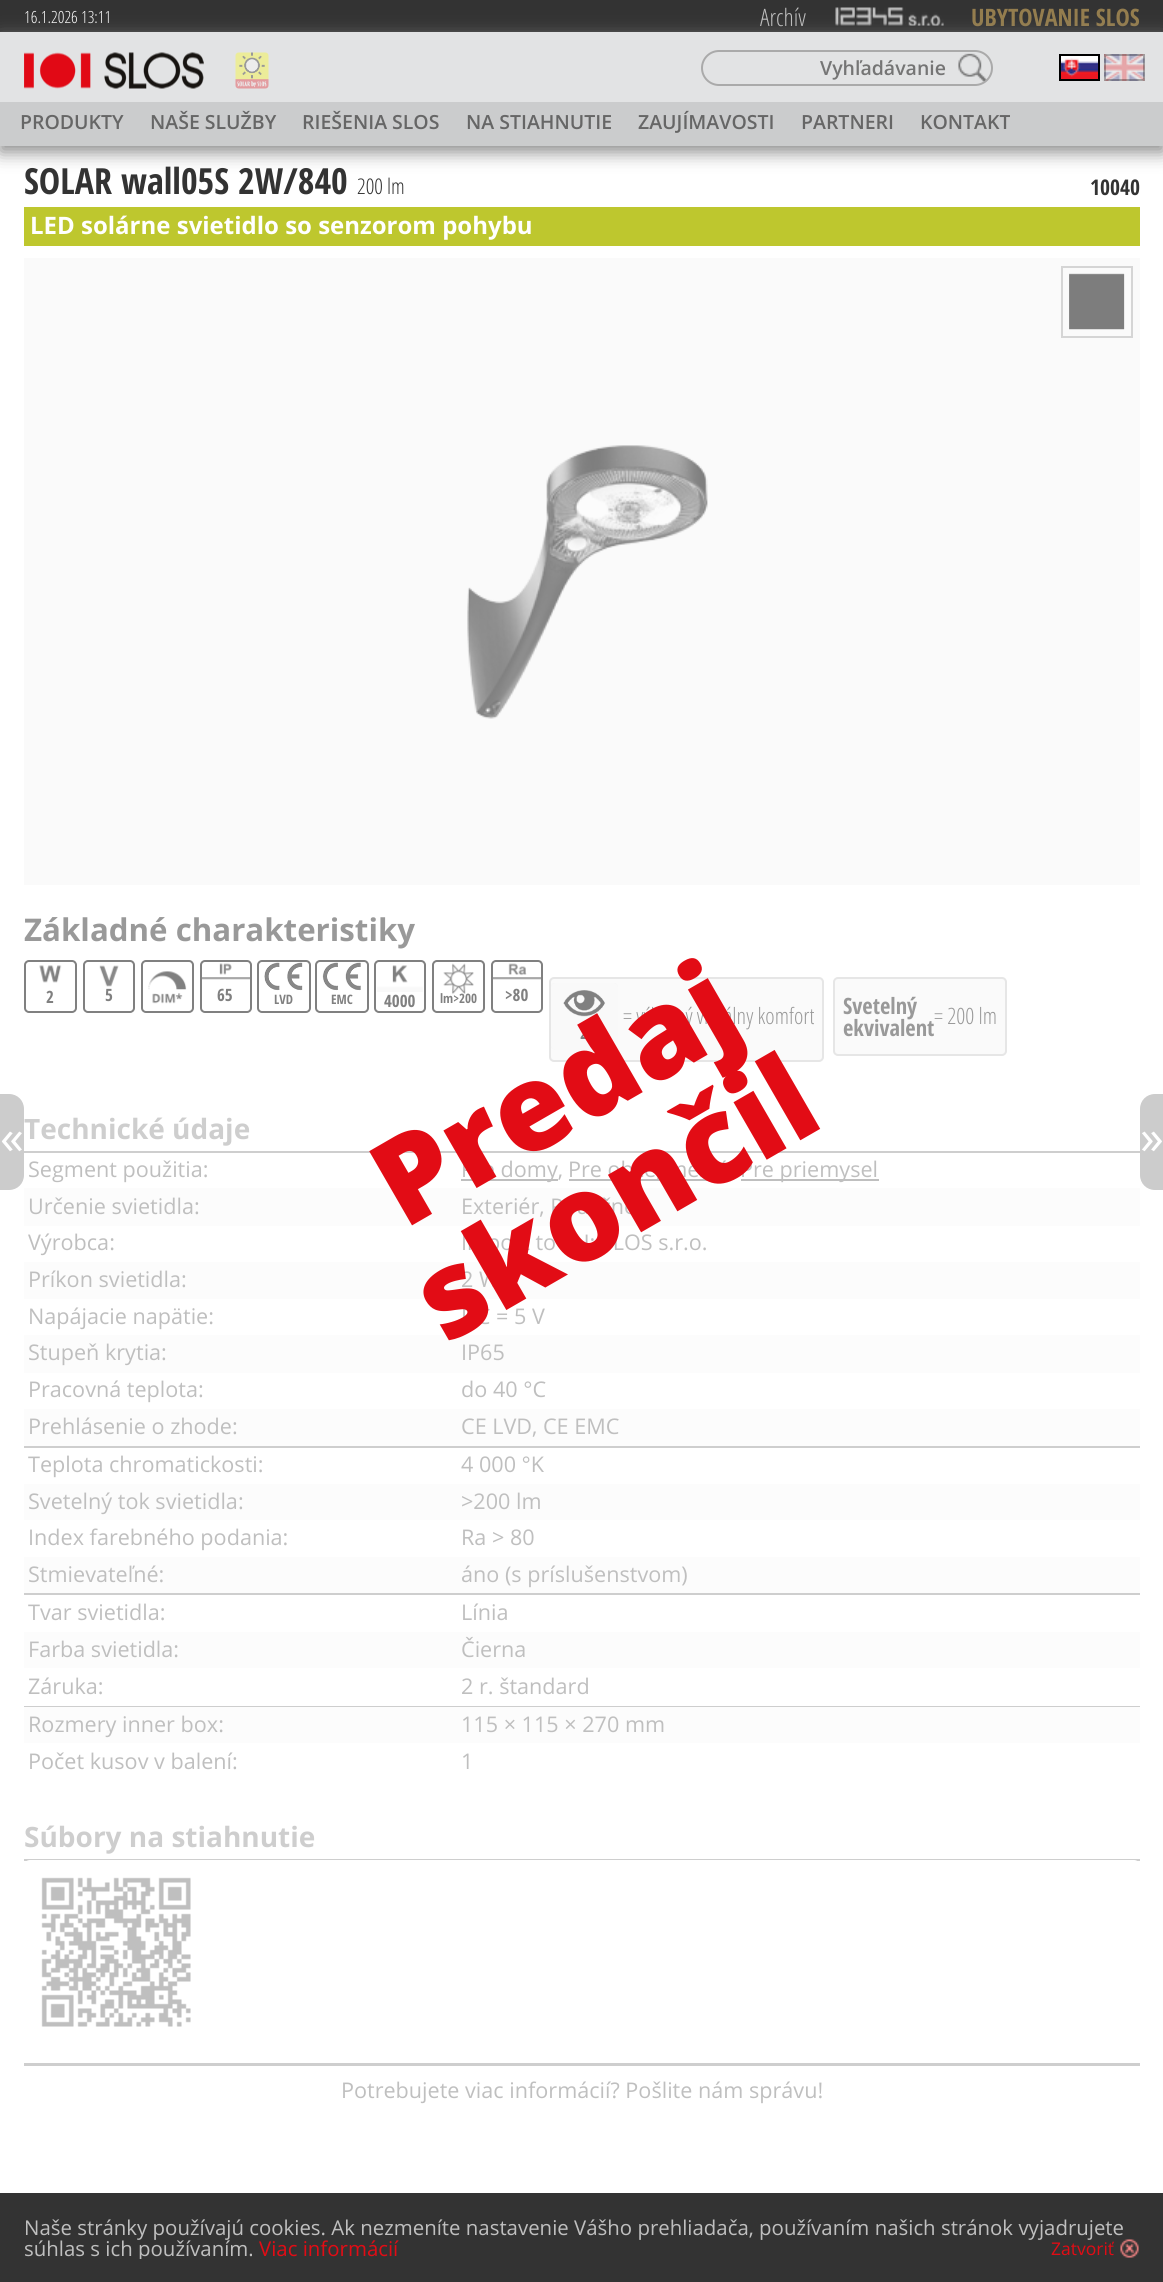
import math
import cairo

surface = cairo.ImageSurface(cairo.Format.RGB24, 1163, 2282)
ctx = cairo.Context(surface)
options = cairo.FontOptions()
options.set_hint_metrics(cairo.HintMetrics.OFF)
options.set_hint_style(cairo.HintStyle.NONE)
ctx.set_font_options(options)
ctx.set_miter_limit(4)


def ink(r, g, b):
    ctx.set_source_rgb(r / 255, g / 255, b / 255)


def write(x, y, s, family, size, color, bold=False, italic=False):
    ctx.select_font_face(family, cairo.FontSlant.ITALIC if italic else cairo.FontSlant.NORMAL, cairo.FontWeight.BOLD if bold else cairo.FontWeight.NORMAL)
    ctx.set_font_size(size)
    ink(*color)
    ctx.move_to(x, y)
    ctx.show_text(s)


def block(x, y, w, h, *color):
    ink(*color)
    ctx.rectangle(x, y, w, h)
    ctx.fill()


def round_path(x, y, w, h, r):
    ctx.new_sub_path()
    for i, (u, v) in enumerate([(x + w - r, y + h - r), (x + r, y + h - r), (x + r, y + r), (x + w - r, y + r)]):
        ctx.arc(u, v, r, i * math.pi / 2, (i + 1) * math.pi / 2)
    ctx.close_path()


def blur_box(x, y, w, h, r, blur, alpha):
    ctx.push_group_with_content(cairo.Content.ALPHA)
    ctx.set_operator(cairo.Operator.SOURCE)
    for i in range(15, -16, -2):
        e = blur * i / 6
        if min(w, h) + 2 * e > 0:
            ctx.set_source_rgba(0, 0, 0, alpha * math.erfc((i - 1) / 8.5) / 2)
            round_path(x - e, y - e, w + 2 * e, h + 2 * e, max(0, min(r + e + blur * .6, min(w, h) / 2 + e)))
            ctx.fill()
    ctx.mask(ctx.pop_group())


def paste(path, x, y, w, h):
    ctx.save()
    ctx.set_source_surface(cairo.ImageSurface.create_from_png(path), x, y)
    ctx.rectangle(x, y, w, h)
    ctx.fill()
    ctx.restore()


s1 = dict(family="Open Sans Light", size=16.75, color=(255, 255, 255))
s2 = dict(family="Open Sans Light", size=24, color=(191, 191, 191))
s3 = dict(family="Open Sans Condensed", size=24, color=(148, 125, 78), bold=True)
s4 = dict(family="Open Sans SemiBold", size=19.5, color=(117, 117, 117))
s5 = dict(family="Open Sans SemiBold", size=19.5, color=(102, 102, 102))
s6 = dict(family="Open Sans Condensed", size=36, color=(51, 51, 51), bold=True)
s7 = dict(family="Open Sans Light", size=21.6, color=(51, 51, 51))
s8 = dict(family="Open Sans Condensed", size=21.6, color=(51, 51, 51), bold=True)
s9 = dict(family="Open Sans", size=24, color=(255, 255, 255), bold=True)
s10 = dict(family="Open Sans", size=31.25, color=(153, 153, 153), bold=True)
s11 = dict(family="Open Sans Condensed", size=17, color=(128, 128, 128), bold=True)
s12 = dict(family="Open Sans Condensed", size=13, color=(128, 128, 128), bold=True)
s13 = dict(family="Open Sans Light", size=22.5, color=(153, 153, 153))
s14 = dict(family="Open Sans Condensed", size=22.5, color=(153, 153, 153), bold=True)
s15 = dict(family="Open Sans", size=28, color=(206, 206, 206), bold=True)
s16 = dict(family="Open Sans", size=21.6, color=(191, 191, 191))
s17 = dict(family="Open Sans", size=48, color=(255, 255, 255))
s18 = dict(family="Open Sans ExtraBold", size=120, color=(226, 12, 21))
s19 = dict(family="Open Sans", size=20.4, color=(191, 191, 191))
s20 = dict(family="Open Sans", size=20.4, color=(226, 12, 21))
s21 = dict(family="Open Sans", size=17.5, color=(226, 12, 21))

ink(255, 255, 255)
ctx.paint()
block(0, 0, 1163, 32, 51, 51, 51)
write(24, 23, "16.1.2026 13:11", **s1)
write(760, 26, "Archív", **s2)
paste("pic1.png", 835, 7, 109, 19)
write(971, 26, "UBYTOVANIE SLOS", **s3)
ink(136, 136, 136)
blur_box(0, 38, 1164, 114, 0, 9, 1)
block(0, 32, 1163, 70, 226, 227, 228)
paste("pic2.png", 24, 52, 180, 37)
paste("pic3.png", 235, 52, 34, 37)
paste("pic4.png", 958, 53, 30, 30)
round_path(702, 51, 290, 34, 17)
ink(170, 170, 170)
ctx.stroke()
write(820, 75, "Vyhľadávanie", **s4)
paste("pic5.png", 1061, 56, 37, 23)
ctx.rectangle(1060, 55, 39, 25)
ink(0, 0, 0)
ctx.stroke()
paste("pic6.png", 1104, 54, 41, 27)
ctx.rectangle(1105, 55, 39, 25)
ctx.set_source_rgba(0, 0, 0, 0.3)
ctx.stroke()
block(0, 102, 1163, 44, 203, 204, 205)
write(20, 129, "PRODUKTY", **s5)
write(150, 129, "NAŠE SLUŽBY", **s5)
write(302, 129, "RIEŠENIA SLOS", **s5)
write(466, 129, "NA STIAHNUTIE", **s5)
write(638, 129, "ZAUJÍMAVOSTI", **s5)
write(801, 129, "PARTNERI", **s5)
write(920, 129, "KONTAKT", **s5)
write(24, 194, "SOLAR wall05S 2W/840", **s6)
write(357, 194, "200 lm", **s7)
write(1090, 195, "10040", **s8)
block(24, 207, 1116, 39, 190, 199, 46)
write(30, 234, "LED solárne svietidlo so senzorom pohybu", **s9)
block(24, 258, 1116, 627, 250, 250, 250)
paste("pic7.png", 1069, 273, 56, 57)
ctx.rectangle(1062, 267, 70, 70)
ink(213, 213, 213)
ctx.stroke()
paste("pic8.png", 467, 445, 241, 274)
write(24, 941, "Základné charakteristiky", **s10)
paste("pic9.png", 39, 965, 23, 18)
round_path(25, 961, 51, 51, 4)
ink(128, 128, 128)
ctx.stroke()
write(46, 1003, "2", **s11)
paste("pic10.png", 99, 965, 20, 22)
round_path(84, 961, 50, 51, 4)
ctx.stroke()
write(105, 1001, "5", **s11)
paste("pic11.png", 148, 971, 39, 33)
round_path(142, 961, 51, 51, 4)
ctx.stroke()
paste("pic12.png", 202, 963, 48, 17)
round_path(201, 961, 50, 51, 4)
ctx.stroke()
write(217, 1001, "65", **s11)
paste("pic13.png", 264, 962, 39, 29)
round_path(258, 961, 52, 51, 4)
ctx.stroke()
write(274, 1004, "LVD", **s12)
paste("pic14.png", 322, 962, 39, 29)
round_path(316, 961, 52, 51, 4)
ctx.stroke()
write(331, 1004, "EMC", **s12)
paste("pic15.png", 377, 965, 46, 27)
round_path(375, 961, 50, 51, 4)
ctx.stroke()
write(384, 1007, "4000", **s11)
paste("pic16.png", 443, 963, 31, 32)
round_path(433, 961, 51, 51, 4)
ctx.stroke()
write(440, 1003, "lm>200", **s12)
paste("pic17.png", 493, 963, 48, 17)
round_path(492, 961, 50, 51, 4)
ctx.stroke()
write(505, 1001, ">80", **s11)
ink(250, 250, 250)
round_path(550, 978, 273, 83, 4)
ctx.fill_preserve()
ink(230, 230, 230)
ctx.stroke()
write(623, 1024, "= výborný vizuálny komfort", **s13)
ink(255, 255, 255)
round_path(551, 983, 67, 67, 5)
ctx.fill()
paste("pic18.png", 551, 983, 67, 67)
write(580, 1039, "2", **s11)
ink(250, 250, 250)
round_path(834, 978, 172, 77, 4)
ctx.fill_preserve()
ink(230, 230, 230)
ctx.stroke()
write(843, 1014, "Svetelný", **s14)
write(843, 1036, "ekvivalent", **s14)
write(934, 1024, "= 200 lm", **s13)
block(24, 1151, 1116, 2, 206, 206, 206)
write(24, 1139, "Technické údaje", **s15)
write(28, 1177, "Segment použitia:", **s16)
block(461, 1179, 97, 2, 191, 191, 191)
write(461, 1177, "Pre domy,", **s16)
block(569, 1179, 160, 2, 191, 191, 191)
write(568, 1177, "Pre obce, mestá,", **s16)
block(741, 1179, 138, 2, 191, 191, 191)
write(740, 1177, "Pre priemysel", **s16)
block(24, 1188, 1116, 38, 252, 252, 252)
write(28, 1214, "Určenie svietidla:", **s16)
write(461, 1214, "Exteriér, Pouličné", **s16)
write(28, 1250, "Výrobca:", **s16)
write(461, 1250, "Import to EU: SLOS s.r.o.", **s16)
block(24, 1262, 1116, 37, 252, 252, 252)
write(28, 1287, "Príkon svietidla:", **s16)
write(461, 1287, "2 W", **s16)
write(28, 1324, "Napájacie napätie:", **s16)
write(461, 1324, "DC = 5 V", **s16)
block(24, 1335, 1116, 38, 252, 252, 252)
write(28, 1360, "Stupeň krytia:", **s16)
write(461, 1360, "IP65", **s16)
write(28, 1397, "Pracovná teplota:", **s16)
write(461, 1397, "do 40 °C", **s16)
block(24, 1409, 1116, 37, 252, 252, 252)
write(28, 1434, "Prehlásenie o zhode:", **s16)
write(461, 1434, "CE LVD, CE EMC", **s16)
block(24, 1446, 1116, 2, 206, 206, 206)
write(28, 1472, "Teplota chromatickosti:", **s16)
write(461, 1472, "4 000 °K", **s16)
block(24, 1484, 1116, 36, 252, 252, 252)
write(28, 1509, "Svetelný tok svietidla:", **s16)
write(461, 1509, ">200 lm", **s16)
write(28, 1545, "Index farebného podania:", **s16)
write(461, 1545, "Ra > 80", **s16)
block(24, 1557, 1116, 36, 252, 252, 252)
write(28, 1582, "Stmievateľné:", **s16)
write(461, 1582, "áno (s príslušenstvom)", **s16)
block(24, 1593, 1116, 2, 206, 206, 206)
write(28, 1620, "Tvar svietidla:", **s16)
write(461, 1620, "Línia", **s16)
block(24, 1632, 1116, 36, 252, 252, 252)
write(28, 1657, "Farba svietidla:", **s16)
write(461, 1657, "Čierna", **s16)
write(28, 1694, "Záruka:", **s16)
write(461, 1694, "2 r. štandard", **s16)
block(24, 1706, 1116, 1, 206, 206, 206)
block(24, 1707, 1116, 36, 252, 252, 252)
write(28, 1732, "Rozmery inner box:", **s16)
write(461, 1732, "115 × 115 × 270 mm", **s16)
write(28, 1769, "Počet kusov v balení:", **s16)
write(461, 1769, "1", **s16)
block(24, 1859, 1116, 2, 206, 206, 206)
write(24, 1847, "Súbory na stiahnutie", **s15)
ink(255, 255, 255)
round_path(25.5, 1861.5, 1113, 189, 4.5)
ctx.fill_preserve()
ctx.set_line_width(3)
ctx.stroke()
paste("pic19.png", 41, 1877, 150, 150)
block(24, 2063, 1116, 3, 206, 206, 206)
write(341, 2098, "Potrebujete viac informácií? Pošlite nám správu!", **s16)
ink(204, 204, 204)
ctx.new_path()
ctx.move_to(0, 1094)
ctx.line_to(9, 1094)
ctx.curve_to(17.5, 1094, 24, 1100.5, 24, 1109)
ctx.line_to(24, 1175)
ctx.curve_to(24, 1183.5, 17.5, 1190, 9, 1190)
ctx.line_to(0, 1190)
ctx.close_path()
ctx.fill()
write(0, 1154, "«", **s17)
ctx.save()
ctx.translate(404, 1230)
ctx.rotate(-30 * math.pi / 180)
write(0, 0, "Predaj", **s18)
ctx.restore()
ctx.save()
ctx.translate(444, 1346)
ctx.rotate(-30 * math.pi / 180)
write(0, 0, "skončil", **s18)
ctx.restore()
ink(204, 204, 204)
ctx.new_path()
ctx.move_to(1155, 1094)
ctx.line_to(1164, 1094)
ctx.line_to(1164, 1190)
ctx.line_to(1155, 1190)
ctx.curve_to(1146.5, 1190, 1140, 1183.5, 1140, 1175)
ctx.line_to(1140, 1109)
ctx.curve_to(1140, 1100.5, 1146.5, 1094, 1155, 1094)
ctx.close_path()
ctx.fill()
write(1140, 1154, "»", **s17)
block(0, 2193, 1163, 89, 51, 51, 51)
paste("pic20.png", 1120, 2239, 19, 19)
write(24, 2235, "Naše stránky používajú cookies. Ak nezmeníte nastavenie Vášho prehliadača, používaním našich stránok vyjadrujete", **s19)
ctx.save()
ctx.rectangle(24, 2217, 1116, 42)
ctx.clip()
write(24, 2256, "súhlas s ich používaním.", **s19)
ctx.restore()
write(259, 2256, "Viac informácií", **s20)
write(1051, 2255, "Zatvoriť", **s21)
surface.write_to_png("screenshot.png")
